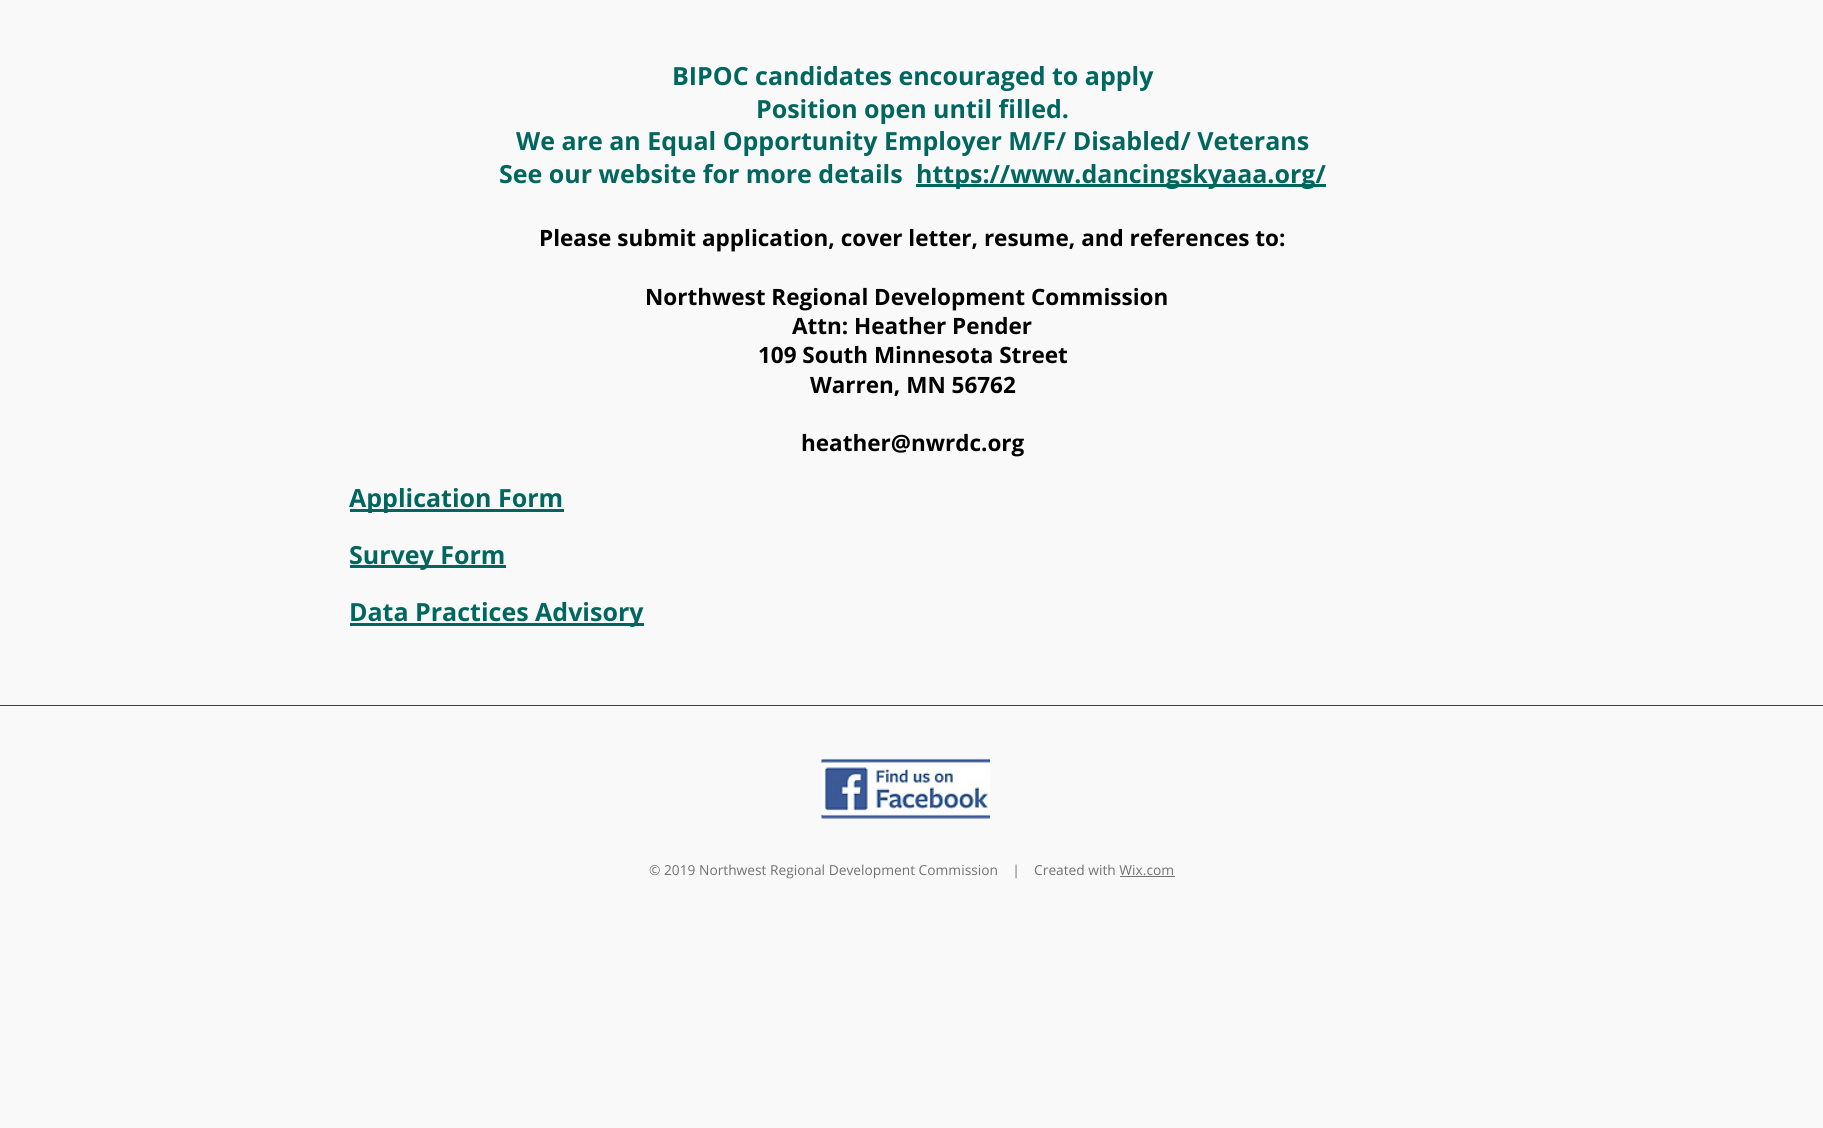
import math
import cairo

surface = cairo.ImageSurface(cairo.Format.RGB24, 1823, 1128)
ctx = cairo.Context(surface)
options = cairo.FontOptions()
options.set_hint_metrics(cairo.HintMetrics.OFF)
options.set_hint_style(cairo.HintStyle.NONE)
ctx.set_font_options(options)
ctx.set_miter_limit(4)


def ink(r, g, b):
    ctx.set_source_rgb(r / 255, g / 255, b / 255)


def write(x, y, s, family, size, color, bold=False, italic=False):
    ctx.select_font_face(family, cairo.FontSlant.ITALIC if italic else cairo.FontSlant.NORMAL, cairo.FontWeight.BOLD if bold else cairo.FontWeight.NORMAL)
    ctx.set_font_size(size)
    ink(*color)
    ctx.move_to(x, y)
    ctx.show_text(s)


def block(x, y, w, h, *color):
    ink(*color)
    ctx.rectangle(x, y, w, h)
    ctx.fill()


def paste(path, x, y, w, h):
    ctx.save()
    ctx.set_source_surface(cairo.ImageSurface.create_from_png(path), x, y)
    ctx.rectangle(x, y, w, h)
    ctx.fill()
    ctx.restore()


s1 = dict(family="Open Sans", size=25, color=(0, 102, 94), bold=True)
s2 = dict(family="Open Sans", size=22.5, color=(0, 0, 0), bold=True)
s3 = dict(family="Open Sans", size=13.75, color=(114, 114, 114))

ink(249, 249, 249)
ctx.paint()
write(672, 85, "BIPOC candidates encouraged to apply", **s1)
write(756, 118, "Position open until filled.", **s1)
write(516, 150, "We are an Equal Opportunity Employer M/F/ Disabled/ Veterans", **s1)
write(499, 183, "See our website for more details", **s1)
block(916, 184, 410, 3, 0, 102, 94)
write(916, 183, "https://www.dancingskyaaa.org/", **s1)
write(539, 246, "Please submit application, cover letter, resume, and references to:", **s2)
write(645, 305, "Northwest Regional Development Commission", **s2)
write(792, 334, "Attn: Heather Pender", **s2)
write(758, 363, "109 South Minnesota Street", **s2)
write(810, 393, "Warren, MN 56762", **s2)
write(801, 451, "heather@nwrdc.org", **s2)
block(350, 509, 214, 3, 0, 102, 94)
write(349, 507, "Application Form", **s1)
block(350, 565, 156, 3, 0, 102, 94)
write(349, 564, "Survey Form", **s1)
block(350, 623, 294, 3, 0, 102, 94)
write(349, 621, "Data Practices Advisory", **s1)
block(0, 705, 1823, 1, 66, 66, 66)
paste("pic1.png", 821, 758, 169, 61)
write(649, 875, "© 2019 Northwest Regional Development Commission    |    Created with Wix.com", **s3)
block(1120, 876, 55, 1, 114, 114, 114)
surface.write_to_png("screenshot.png")
